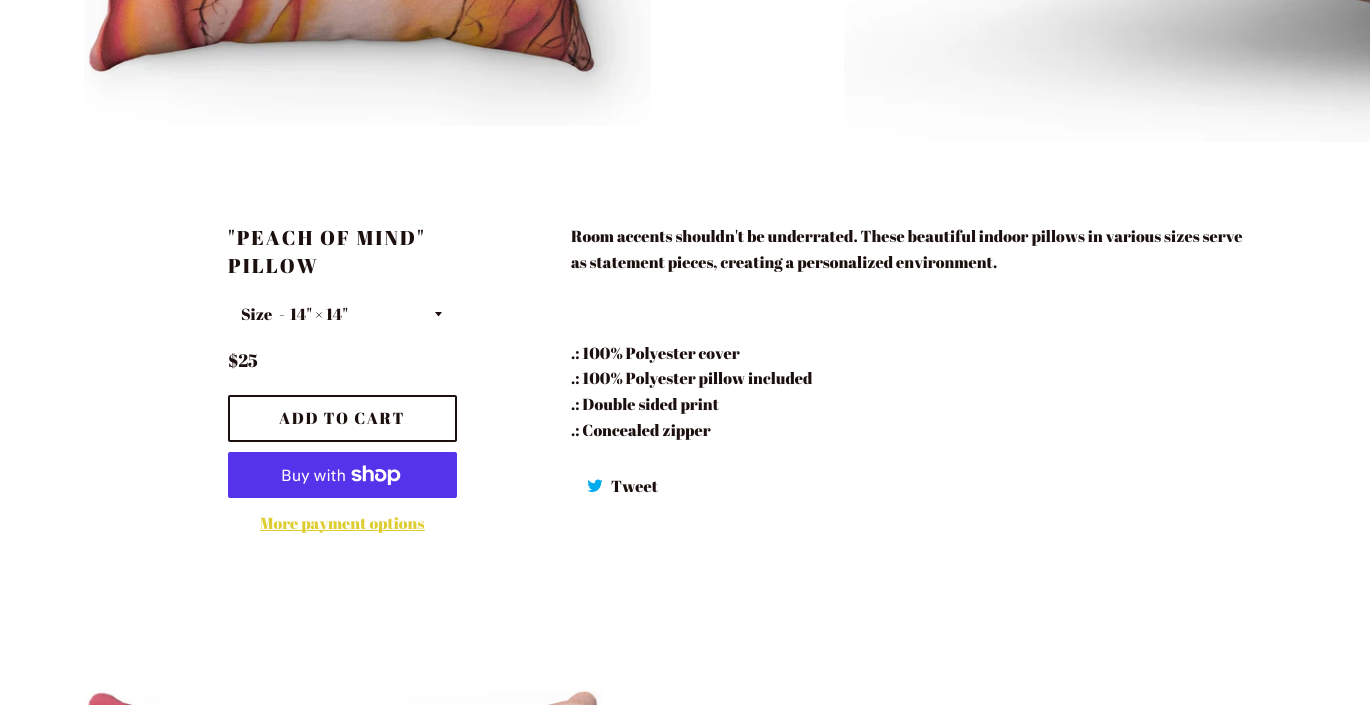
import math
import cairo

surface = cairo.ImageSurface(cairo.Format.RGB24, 1370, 705)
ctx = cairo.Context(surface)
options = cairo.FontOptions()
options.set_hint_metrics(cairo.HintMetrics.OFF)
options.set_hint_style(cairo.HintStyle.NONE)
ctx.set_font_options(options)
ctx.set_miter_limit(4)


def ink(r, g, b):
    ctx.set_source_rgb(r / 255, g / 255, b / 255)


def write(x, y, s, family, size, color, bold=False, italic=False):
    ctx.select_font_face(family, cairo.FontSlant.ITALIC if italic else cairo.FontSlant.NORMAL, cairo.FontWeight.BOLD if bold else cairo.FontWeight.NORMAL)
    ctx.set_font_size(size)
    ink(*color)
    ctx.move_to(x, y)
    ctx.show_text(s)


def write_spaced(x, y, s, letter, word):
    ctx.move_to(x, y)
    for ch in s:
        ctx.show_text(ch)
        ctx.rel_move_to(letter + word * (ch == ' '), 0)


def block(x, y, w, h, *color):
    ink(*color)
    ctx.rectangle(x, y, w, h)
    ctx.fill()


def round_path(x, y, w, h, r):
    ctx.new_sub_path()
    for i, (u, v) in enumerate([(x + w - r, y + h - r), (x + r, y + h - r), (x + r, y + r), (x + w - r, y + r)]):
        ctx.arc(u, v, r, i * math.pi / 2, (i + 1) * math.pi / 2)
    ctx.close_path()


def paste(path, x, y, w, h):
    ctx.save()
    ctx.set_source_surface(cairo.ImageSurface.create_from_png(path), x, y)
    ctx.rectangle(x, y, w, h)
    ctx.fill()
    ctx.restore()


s1 = dict(family="Abril Fatface", size=16, color=(27, 16, 14))
s2 = dict(family="Abril Fatface", size=18, color=(27, 16, 14))
s3 = dict(family="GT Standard", size=16, color=(255, 255, 255))
s4 = dict(family="Abril Fatface", size=16, color=(222, 204, 48))

ink(255, 255, 255)
ctx.paint()
paste("pic1.png", 84, 0, 567, 126)
paste("pic2.png", 844, 0, 526, 142)
ctx.select_font_face("Abril Fatface")
ctx.set_font_size(20)
ink(27, 16, 14)
write_spaced(228, 245, "\"PEACH OF MIND\"", 2, 0)
write_spaced(228, 273, "PILLOW", 2, 0)
write(241, 320, "Size", **s1)
write(279, 320, "-", **s1)
ctx.new_path()
ctx.move_to(435, 312)
ctx.curve_to(439.5, 317.5, 437.5, 317.5, 442, 312)
ctx.close_path()
ctx.fill()
write(290, 320, "14\" × 14\"", **s1)
write(228, 367, "$25", **s2)
round_path(229, 396, 227, 45, 1)
ctx.stroke()
ctx.set_font_size(16)
write_spaced(279, 424, "ADD TO CART", 1.6, 0)
ink(84, 51, 235)
round_path(228, 452, 229, 46, 2)
ctx.fill()
write(281, 481, "Buy with", **s3)
paste("pic3.png", 351, 465, 50, 20)
block(260, 530, 165, 1, 222, 204, 48)
write(260, 529, "More payment options", **s4)
write(571, 242, "Room accents shouldn't be underrated. These beautiful indoor pillows in various sizes serve", **s1)
write(571, 268, "as statement pieces, creating a personalized environment.", **s1)
write(571, 359, ".: 100% Polyester cover", **s1)
write(571, 384, ".: 100% Polyester pillow included", **s1)
write(571, 410, ".: Double sided print", **s1)
write(571, 436, ".: Concealed zipper", **s1)
paste("pic4.png", 587, 479, 16, 13)
write(611, 492, "Tweet", **s1)
paste("pic5.png", 85, 690, 517, 15)
surface.write_to_png("screenshot.png")
